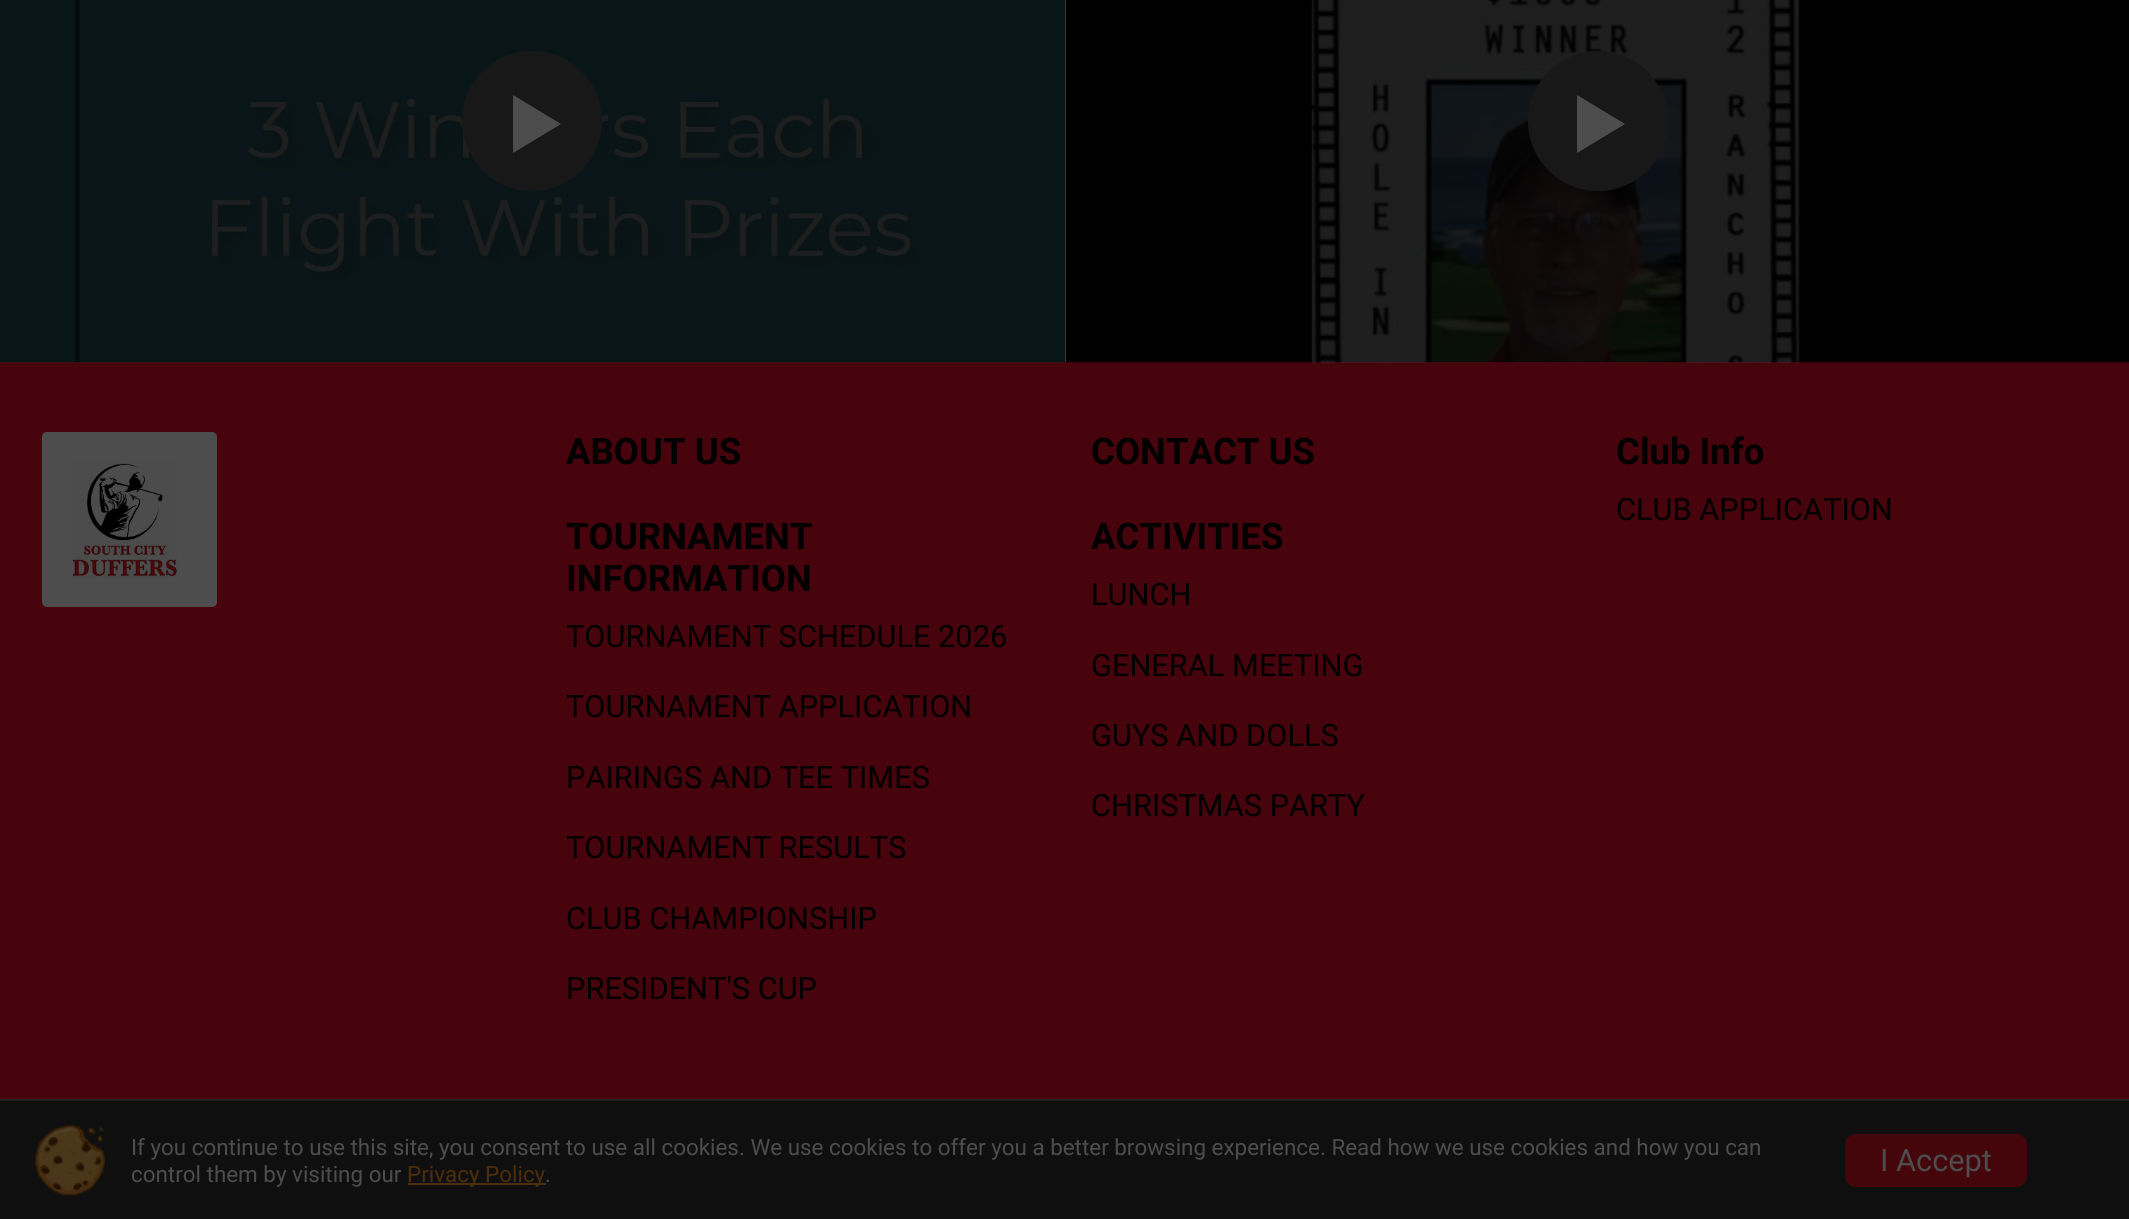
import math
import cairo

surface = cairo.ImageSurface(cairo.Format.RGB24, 2129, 1219)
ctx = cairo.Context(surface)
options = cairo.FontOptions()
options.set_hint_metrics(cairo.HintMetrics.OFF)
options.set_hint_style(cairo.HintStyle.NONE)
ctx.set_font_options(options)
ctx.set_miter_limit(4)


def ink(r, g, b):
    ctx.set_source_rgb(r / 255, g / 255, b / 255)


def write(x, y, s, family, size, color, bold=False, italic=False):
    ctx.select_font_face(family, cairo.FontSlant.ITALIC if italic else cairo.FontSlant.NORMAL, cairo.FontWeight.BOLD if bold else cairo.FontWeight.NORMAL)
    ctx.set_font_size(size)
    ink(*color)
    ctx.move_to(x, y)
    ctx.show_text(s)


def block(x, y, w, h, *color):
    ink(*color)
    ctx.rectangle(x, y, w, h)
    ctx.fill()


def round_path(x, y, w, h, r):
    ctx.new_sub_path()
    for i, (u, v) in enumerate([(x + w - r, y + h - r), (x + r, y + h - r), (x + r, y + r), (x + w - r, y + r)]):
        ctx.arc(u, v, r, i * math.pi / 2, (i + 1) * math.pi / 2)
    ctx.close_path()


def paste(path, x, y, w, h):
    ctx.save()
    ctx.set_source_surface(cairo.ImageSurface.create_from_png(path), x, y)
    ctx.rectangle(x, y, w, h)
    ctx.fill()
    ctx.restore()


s1 = dict(family="Roboto", size=36.5, color=(0, 0, 0), bold=True)
s2 = dict(family="Roboto", size=30.75, color=(0, 0, 0))
s3 = dict(family="Roboto", size=22.4, color=(77, 77, 77))
s4 = dict(family="Roboto", size=22.4, color=(76, 46, 11))
s5 = dict(family="Roboto", size=30.75, color=(77, 77, 77))

ink(255, 255, 255)
ctx.paint()
block(0, 362, 2129, 737, 71, 4, 12)
paste("pic1.png", 0, 0, 1066, 363)
ink(24, 24, 24)
ctx.arc(532, 121, 70, 0, 2 * math.pi)
ctx.fill()
ink(77, 77, 77)
ctx.new_path()
ctx.move_to(513, 95)
ctx.line_to(561, 124)
ctx.line_to(513, 153)
ctx.close_path()
ctx.fill()
paste("pic2.png", 1065, 0, 1064, 363)
ink(24, 24, 24)
ctx.arc(1598, 121, 70, 0, 2 * math.pi)
ctx.fill()
ink(77, 77, 77)
ctx.new_path()
ctx.move_to(1577, 95)
ctx.line_to(1625, 124)
ctx.line_to(1577, 153)
ctx.close_path()
ctx.fill()
round_path(42, 432, 175, 175, 5)
ctx.fill()
paste("pic3.png", 72, 460, 105, 118)
write(566, 464, "ABOUT US", **s1)
write(566, 549, "TOURNAMENT", **s1)
write(566, 591, "INFORMATION", **s1)
write(566, 647, "TOURNAMENT SCHEDULE 2026", **s2)
write(566, 717, "TOURNAMENT APPLICATION", **s2)
write(566, 788, "PAIRINGS AND TEE TIMES", **s2)
write(566, 858, "TOURNAMENT RESULTS", **s2)
write(566, 929, "CLUB CHAMPIONSHIP", **s2)
write(566, 999, "PRESIDENT'S CUP", **s2)
write(1091, 464, "CONTACT US", **s1)
write(1091, 549, "ACTIVITIES", **s1)
write(1091, 605, "LUNCH", **s2)
write(1091, 676, "GENERAL MEETING", **s2)
write(1091, 746, "GUYS AND DOLLS", **s2)
write(1091, 816, "CHRISTMAS PARTY", **s2)
write(1616, 464, "Club Info", **s1)
write(1616, 520, "CLUB APPLICATION", **s2)
block(0, 1101, 2129, 118, 15, 15, 15)
block(0, 1099, 2129, 2, 31, 31, 31)
paste("pic4.png", 35, 1125, 70, 71)
write(131, 1155, "If you continue to use this site, you consent to use all cookies. We use cookies to offer you a better browsing experience. Read how we use cookies and how you can", **s3)
write(131, 1182, "control them by visiting our", **s3)
block(408, 1183, 138, 2, 76, 46, 11)
write(407, 1182, "Privacy Policy", **s4)
write(545, 1182, ".", **s3)
ink(68, 6, 10)
round_path(1845, 1134, 182, 53, 11)
ctx.fill()
write(1880, 1171, "I Accept", **s5)
surface.write_to_png("screenshot.png")
